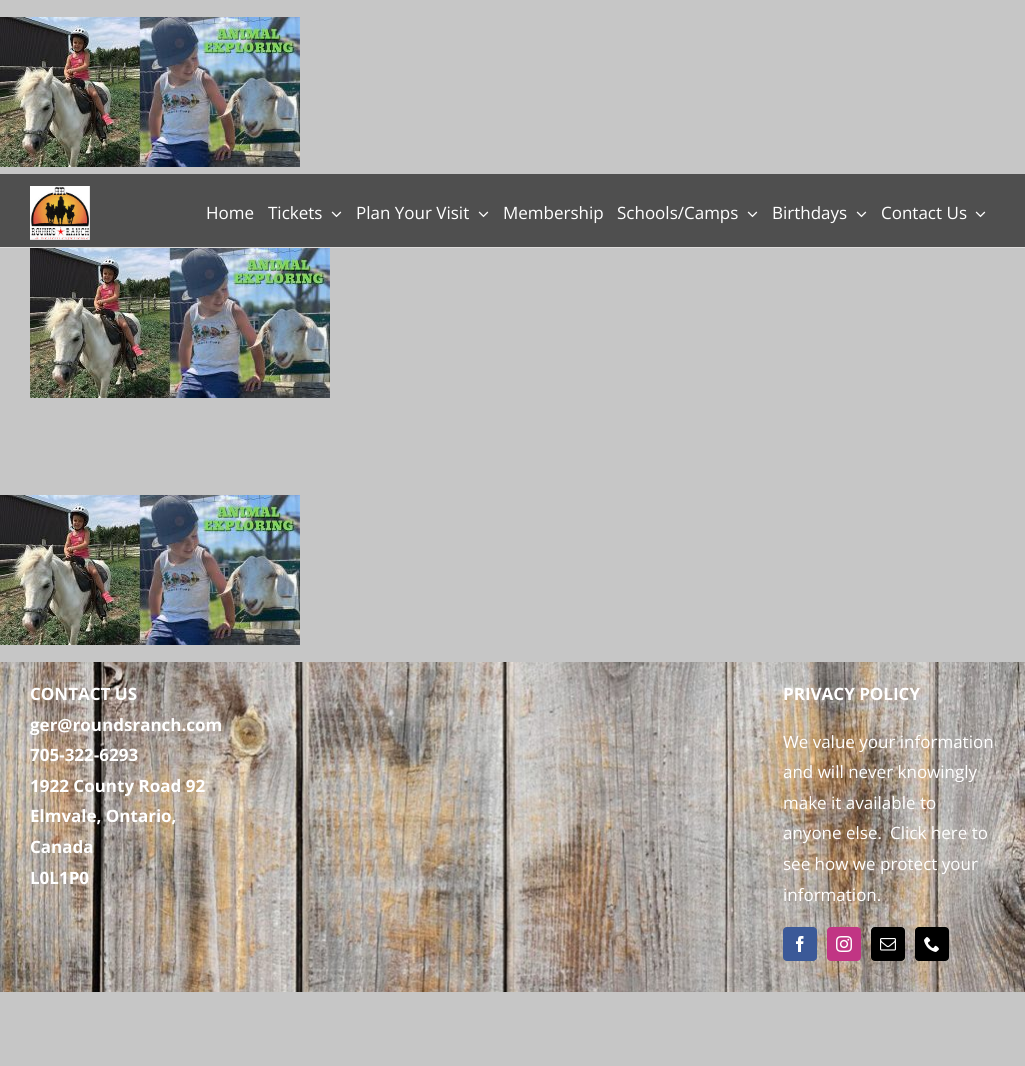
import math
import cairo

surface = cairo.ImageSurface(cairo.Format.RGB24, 1025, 1066)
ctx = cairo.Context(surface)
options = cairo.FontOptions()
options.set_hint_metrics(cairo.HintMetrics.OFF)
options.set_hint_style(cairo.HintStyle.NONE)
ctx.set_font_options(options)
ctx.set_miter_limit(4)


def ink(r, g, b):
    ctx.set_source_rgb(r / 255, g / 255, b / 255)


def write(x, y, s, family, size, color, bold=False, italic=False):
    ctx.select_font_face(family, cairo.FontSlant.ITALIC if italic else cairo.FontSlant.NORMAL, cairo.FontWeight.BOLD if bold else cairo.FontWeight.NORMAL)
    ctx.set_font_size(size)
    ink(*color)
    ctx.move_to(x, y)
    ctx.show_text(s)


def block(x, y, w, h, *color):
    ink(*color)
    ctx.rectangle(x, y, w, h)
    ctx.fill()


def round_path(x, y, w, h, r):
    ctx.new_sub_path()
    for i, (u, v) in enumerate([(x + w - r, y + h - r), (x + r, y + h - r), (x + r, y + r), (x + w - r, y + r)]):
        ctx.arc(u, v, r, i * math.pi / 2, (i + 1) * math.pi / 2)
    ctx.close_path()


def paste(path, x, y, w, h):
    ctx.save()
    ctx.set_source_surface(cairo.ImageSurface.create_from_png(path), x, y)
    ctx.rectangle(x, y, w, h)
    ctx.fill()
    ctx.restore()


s1 = dict(family="Open Sans", size=17, color=(255, 255, 255))
s2 = dict(family="Open Sans", size=17, color=(255, 255, 255), bold=True)

ink(198, 198, 198)
ctx.paint()
paste("pic1.png", 0, 17, 300, 150)
block(0, 174, 1025, 73, 79, 79, 79)
paste("pic2.png", 30, 186, 60, 54)
write(206, 219, "Home", **s1)
write(268, 219, "Tickets", **s1)
paste("pic3.png", 331, 211, 11, 7)
write(356, 219, "Plan Your Visit", **s1)
paste("pic3.png", 478, 211, 11, 7)
write(503, 219, "Membership", **s1)
write(617, 219, "Schools/Camps", **s1)
paste("pic3.png", 747, 211, 11, 7)
write(772, 219, "Birthdays", **s1)
paste("pic3.png", 856, 211, 11, 7)
write(881, 219, "Contact Us", **s1)
paste("pic3.png", 975, 211, 11, 7)
block(0, 247, 1025, 1, 221, 220, 219)
paste("pic1.png", 30, 248, 300, 150)
paste("pic1.png", 0, 495, 300, 150)
paste("pic4.png", 0, 662, 1025, 330)
write(30, 700, "CONTACT US", **s2)
write(30, 731, "ger@roundsranch.com", **s2)
write(30, 761, "705-322-6293", **s2)
write(30, 792, "1922 County Road 92", **s2)
write(30, 822, "Elmvale, Ontario,", **s2)
write(30, 853, "Canada", **s2)
write(30, 884, "L0L1P0", **s2)
write(783, 700, "PRIVACY POLICY", **s2)
write(783, 748, "We value your information", **s1)
write(783, 778, "and will never knowingly", **s1)
write(783, 809, "make it available to", **s1)
write(783, 839, "anyone else.", **s1)
write(890, 839, "Click here to", **s1)
write(783, 870, "see how we protect your", **s1)
write(783, 901, "information.", **s1)
ink(59, 89, 152)
round_path(783.5, 927.5, 33, 33, 3.5)
ctx.fill_preserve()
ctx.set_line_width(1)
ctx.stroke()
paste("pic5.png", 796, 936, 8, 16)
ink(193, 53, 132)
round_path(827.5, 927.5, 33, 33, 3.5)
ctx.fill_preserve()
ctx.stroke()
paste("pic6.png", 836, 936, 16, 16)
ink(0, 0, 0)
round_path(871.5, 927.5, 33, 33, 3.5)
ctx.fill_preserve()
ctx.stroke()
paste("pic7.png", 880, 938, 16, 13)
round_path(915.5, 927.5, 33, 33, 3.5)
ctx.fill_preserve()
ctx.stroke()
paste("pic8.png", 924, 937, 15, 15)
surface.write_to_png("screenshot.png")
